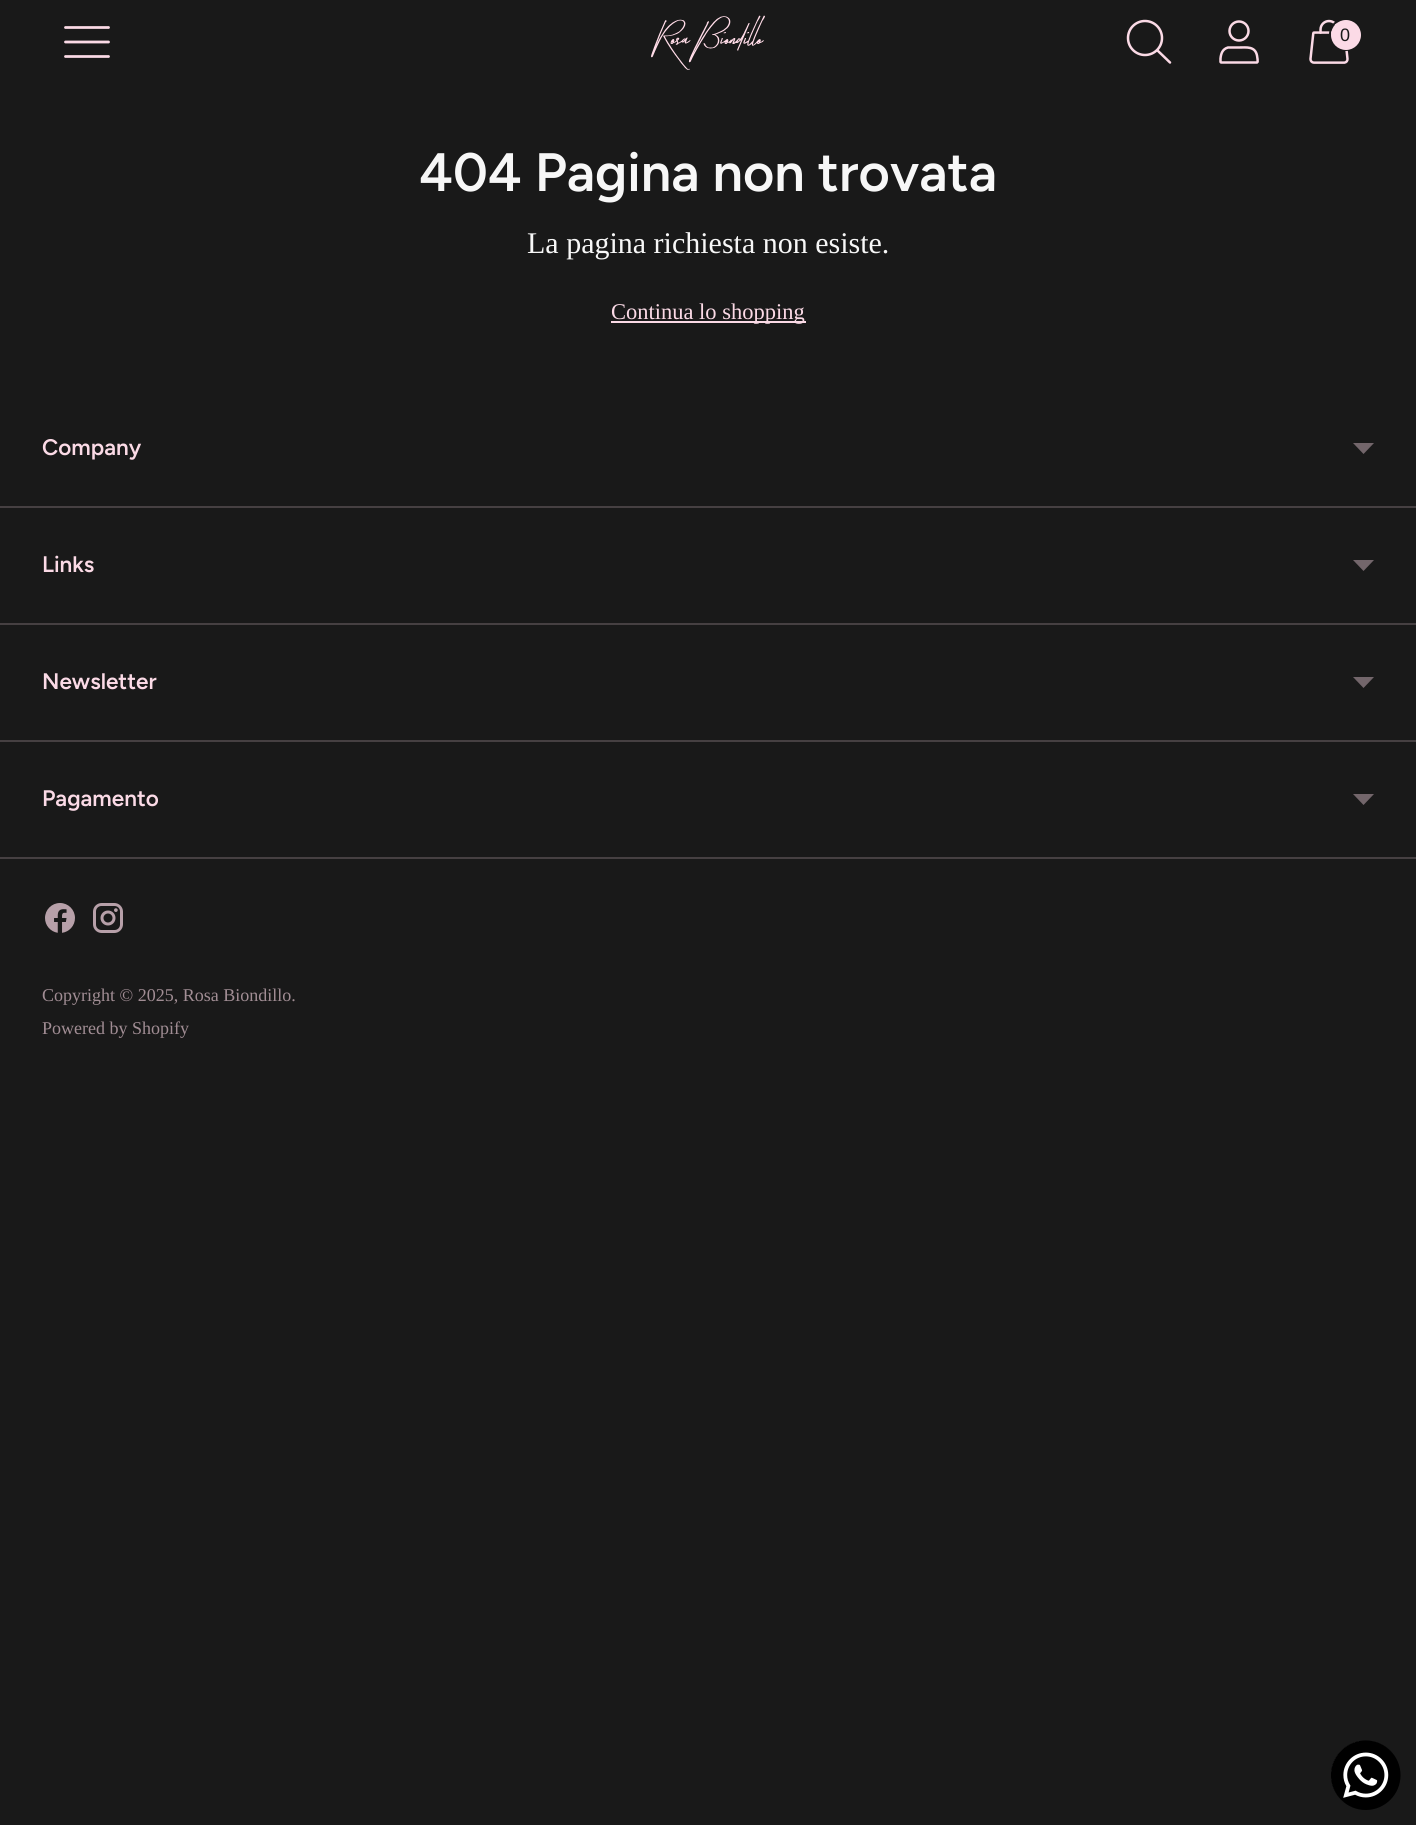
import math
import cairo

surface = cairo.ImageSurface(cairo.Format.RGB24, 1416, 1825)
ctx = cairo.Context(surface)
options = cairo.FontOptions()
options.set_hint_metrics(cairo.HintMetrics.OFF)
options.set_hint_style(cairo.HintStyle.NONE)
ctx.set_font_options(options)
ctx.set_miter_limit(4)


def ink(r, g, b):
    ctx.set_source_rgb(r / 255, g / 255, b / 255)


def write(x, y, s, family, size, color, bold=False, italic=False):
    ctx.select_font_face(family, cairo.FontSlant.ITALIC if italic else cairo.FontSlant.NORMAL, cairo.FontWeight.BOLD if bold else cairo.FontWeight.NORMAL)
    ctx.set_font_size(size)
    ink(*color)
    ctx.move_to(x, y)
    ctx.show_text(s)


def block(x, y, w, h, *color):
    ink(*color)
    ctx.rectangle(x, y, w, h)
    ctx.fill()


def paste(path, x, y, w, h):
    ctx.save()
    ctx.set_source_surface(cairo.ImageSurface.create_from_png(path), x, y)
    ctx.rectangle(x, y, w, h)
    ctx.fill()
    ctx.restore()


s1 = dict(family="Liberation Sans", size=18, color=(25, 25, 25))
s2 = dict(family="Figtree SemiBold", size=54, color=(247, 247, 247))
s3 = dict(family="Liberation Serif", size=30, color=(247, 247, 247))
s4 = dict(family="Liberation Serif", size=22.5, color=(251, 218, 230))
s5 = dict(family="Figtree SemiBold", size=22.5, color=(251, 218, 230))
s6 = dict(family="Liberation Serif", size=18, color=(161, 141, 148))

ink(25, 25, 25)
ctx.paint()
ctx.new_path()
ctx.move_to(65.5, 42)
ctx.line_to(108.5, 42)
ctx.move_to(65.5, 27.5)
ctx.line_to(108.5, 27.5)
ctx.move_to(65.5, 56.5)
ctx.line_to(108.5, 56.5)
ink(251, 218, 230)
ctx.set_line_width(2.8)
ctx.set_line_cap(cairo.LineCap.ROUND)
ctx.set_line_join(cairo.LineJoin.ROUND)
ctx.stroke()
paste("pic1.png", 651, 15, 114, 55)
ctx.arc(1145, 38, 17, 0, 2 * math.pi)
ctx.set_line_width(2.5)
ctx.set_line_cap(cairo.LineCap.BUTT)
ctx.set_line_join(cairo.LineJoin.MITER)
ctx.stroke()
ctx.new_path()
ctx.move_to(1157.5, 50.5)
ctx.line_to(1170, 62.5)
ctx.set_line_cap(cairo.LineCap.ROUND)
ctx.set_line_join(cairo.LineJoin.ROUND)
ctx.stroke()
ctx.arc(1239, 31, 9.5, 0, 2 * math.pi)
ctx.set_line_cap(cairo.LineCap.BUTT)
ctx.set_line_join(cairo.LineJoin.MITER)
ctx.stroke()
ctx.new_path()
ctx.move_to(1257, 62.5)
ctx.curve_to(1258.5, 62.5, 1257, 56.5, 1257, 55.5)
ctx.curve_to(1255, 46, 1246.5, 47.5, 1239, 47.5)
ctx.line_to(1228, 47.5)
ctx.curve_to(1222.5, 49, 1221, 53.5, 1220.5, 58.5)
ctx.line_to(1220.5, 62)
ctx.line_to(1221, 62.5)
ctx.close_path()
ctx.set_line_cap(cairo.LineCap.ROUND)
ctx.set_line_join(cairo.LineJoin.ROUND)
ctx.stroke()
paste("pic2.png", 1309, 19, 40, 45)
ctx.arc(1345.5, 34.5, 15.5, 0, 2 * math.pi)
ink(25, 25, 25)
ctx.set_line_width(2)
ctx.set_line_cap(cairo.LineCap.BUTT)
ctx.set_line_join(cairo.LineJoin.MITER)
ctx.stroke()
ink(251, 218, 230)
ctx.arc(1346, 35, 15, 0, 2 * math.pi)
ctx.fill()
write(1340, 41, "0", **s1)
write(419, 191, "404 Pagina non trovata", **s2)
write(527, 253, "La pagina richiesta non esiste.", **s3)
block(611, 321, 195, 2, 251, 218, 230)
write(611, 319, "Continua lo shopping", **s4)
block(0, 506, 1416, 2, 70, 64, 66)
write(42, 455, "Company", **s5)
ink(115, 102, 107)
ctx.new_path()
ctx.move_to(1353, 443)
ctx.line_to(1363.5, 454)
ctx.line_to(1374, 443)
ctx.close_path()
ctx.fill()
block(0, 623, 1416, 2, 70, 64, 66)
write(42, 572, "Links", **s5)
ink(115, 102, 107)
ctx.new_path()
ctx.move_to(1353, 560)
ctx.line_to(1363.5, 571)
ctx.line_to(1374, 560)
ctx.close_path()
ctx.fill()
block(0, 740, 1416, 2, 70, 64, 66)
write(42, 689, "Newsletter", **s5)
ink(115, 102, 107)
ctx.new_path()
ctx.move_to(1353, 677)
ctx.line_to(1363.5, 688)
ctx.line_to(1374, 677)
ctx.close_path()
ctx.fill()
block(0, 857, 1416, 2, 70, 64, 66)
write(42, 806, "Pagamento", **s5)
ink(115, 102, 107)
ctx.new_path()
ctx.move_to(1353, 794)
ctx.line_to(1363.5, 805)
ctx.line_to(1374, 794)
ctx.close_path()
ctx.fill()
paste("pic3.png", 45, 903, 30, 30)
paste("pic4.png", 93, 903, 30, 30)
write(42, 1001, "Copyright © 2025, Rosa Biondillo.", **s6)
write(42, 1034, "Powered by Shopify", **s6)
paste("pic5.png", 1331, 1740, 70, 70)
surface.write_to_png("screenshot.png")
